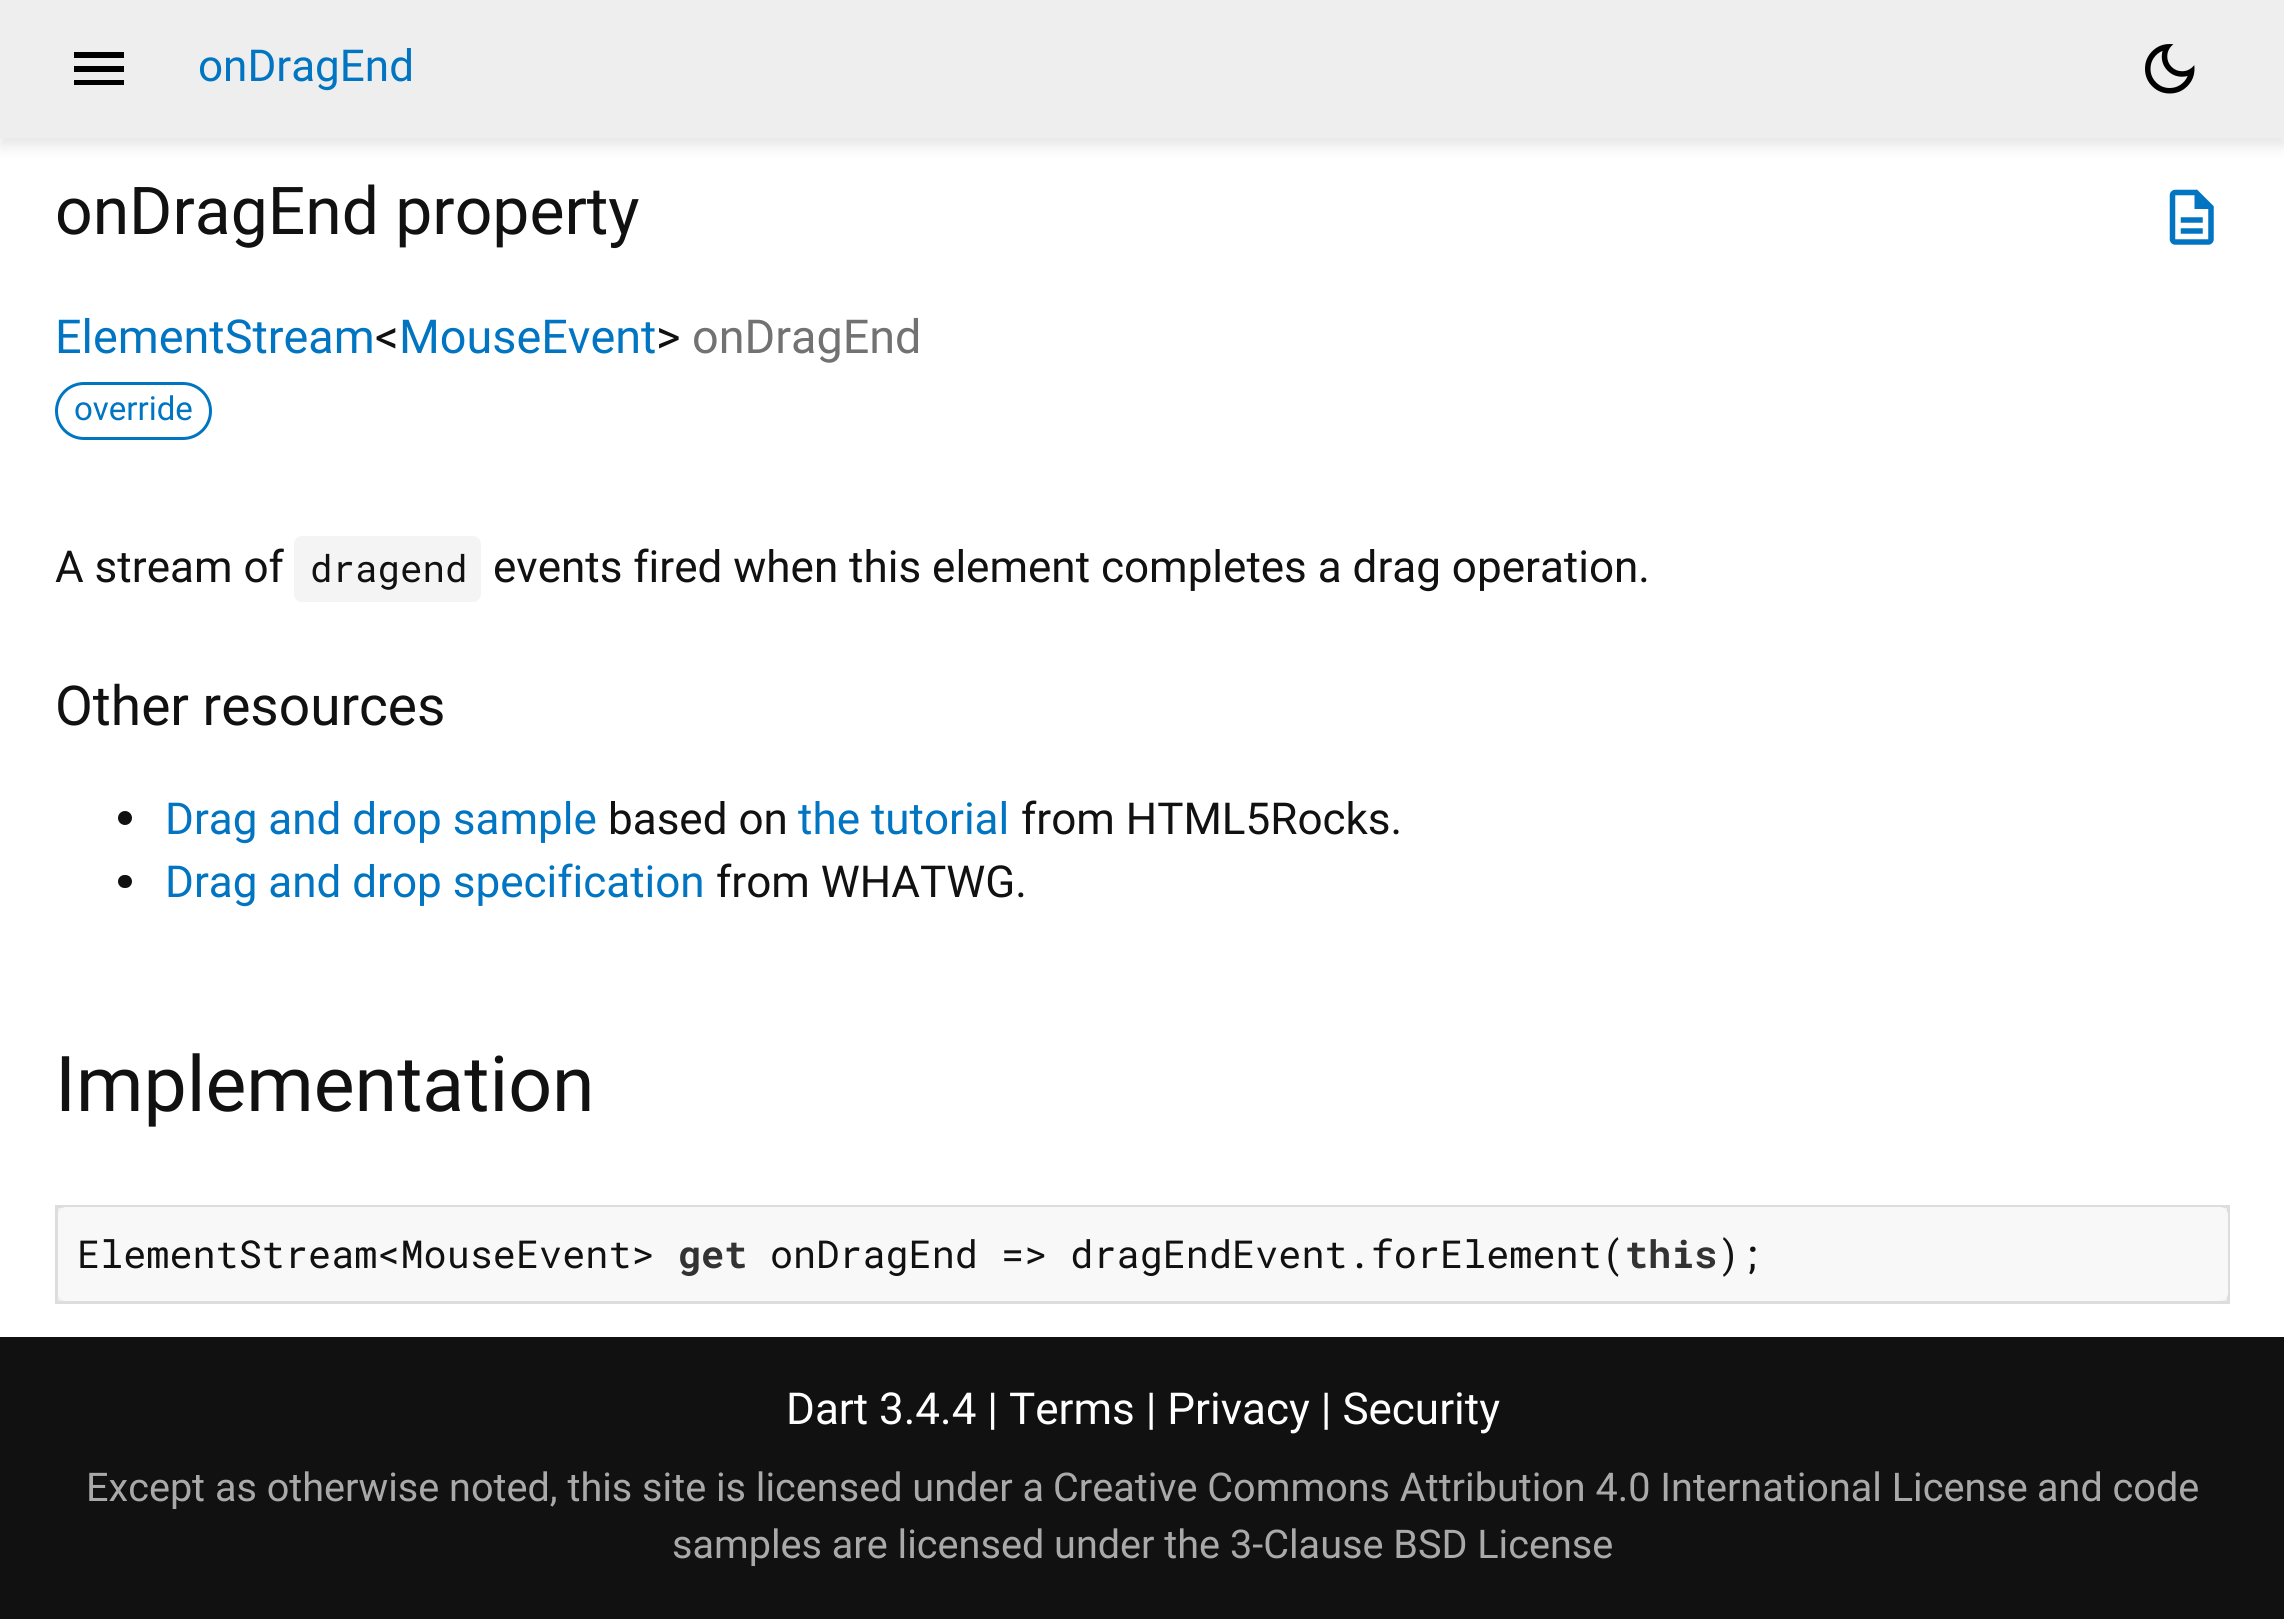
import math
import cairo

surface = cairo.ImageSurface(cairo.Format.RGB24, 2284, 1619)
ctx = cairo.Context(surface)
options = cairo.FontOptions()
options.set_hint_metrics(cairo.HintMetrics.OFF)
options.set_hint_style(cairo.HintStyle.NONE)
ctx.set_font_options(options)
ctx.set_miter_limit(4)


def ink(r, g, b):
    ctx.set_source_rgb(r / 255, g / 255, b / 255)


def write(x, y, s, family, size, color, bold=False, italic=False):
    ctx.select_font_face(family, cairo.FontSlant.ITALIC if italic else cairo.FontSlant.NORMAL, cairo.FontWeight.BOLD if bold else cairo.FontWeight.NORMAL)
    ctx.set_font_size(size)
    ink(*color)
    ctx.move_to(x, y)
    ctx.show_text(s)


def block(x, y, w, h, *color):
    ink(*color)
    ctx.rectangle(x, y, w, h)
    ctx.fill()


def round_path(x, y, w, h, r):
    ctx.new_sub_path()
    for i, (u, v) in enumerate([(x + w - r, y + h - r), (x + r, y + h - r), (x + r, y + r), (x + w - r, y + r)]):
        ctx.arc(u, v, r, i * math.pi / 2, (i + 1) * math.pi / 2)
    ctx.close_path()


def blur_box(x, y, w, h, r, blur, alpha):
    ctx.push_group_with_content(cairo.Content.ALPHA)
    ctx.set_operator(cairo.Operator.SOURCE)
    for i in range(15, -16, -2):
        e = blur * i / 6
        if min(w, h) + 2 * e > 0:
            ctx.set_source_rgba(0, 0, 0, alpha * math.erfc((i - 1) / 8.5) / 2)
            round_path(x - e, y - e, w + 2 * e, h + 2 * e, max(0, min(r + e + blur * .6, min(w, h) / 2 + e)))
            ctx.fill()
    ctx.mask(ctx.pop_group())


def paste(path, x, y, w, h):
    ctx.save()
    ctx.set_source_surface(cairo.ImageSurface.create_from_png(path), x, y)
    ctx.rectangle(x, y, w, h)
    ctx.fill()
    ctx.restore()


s1 = dict(family="Roboto", size=44, color=(1, 117, 194))
s2 = dict(family="Roboto", size=66, color=(17, 17, 17))
s3 = dict(family="Roboto", size=46.75, color=(1, 117, 194))
s4 = dict(family="Roboto", size=46.75, color=(17, 17, 17))
s5 = dict(family="Roboto", size=46.75, color=(114, 114, 114))
s6 = dict(family="Roboto", size=33, color=(1, 117, 194))
s7 = dict(family="Roboto", size=44, color=(17, 17, 17))
s8 = dict(family="Roboto Mono", size=37.5, color=(17, 17, 17))
s9 = dict(family="Roboto", size=55, color=(17, 17, 17))
s10 = dict(family="Roboto", size=77, color=(17, 17, 17))
s11 = dict(family="Roboto Mono", size=38.5, color=(17, 17, 17))
s12 = dict(family="Roboto Mono", size=38.5, color=(51, 51, 51), bold=True)
s13 = dict(family="Roboto", size=44, color=(255, 255, 255))
s14 = dict(family="Roboto", size=39.6, color=(169, 169, 169))

ink(255, 255, 255)
ctx.paint()
ink(0, 0, 0)
blur_box(0, 8, 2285, 138, 0, 7, 0.1)
block(0, 0, 2284, 138, 238, 238, 238)
ink(0, 0, 0)
ctx.new_path()
ctx.move_to(74, 85)
ctx.line_to(74, 80)
ctx.line_to(124, 80)
ctx.line_to(124, 85)
ctx.close_path()
ctx.move_to(74, 72)
ctx.line_to(74, 66)
ctx.line_to(124, 66)
ctx.line_to(124, 72)
ctx.close_path()
ctx.move_to(74, 58)
ctx.line_to(74, 52)
ctx.line_to(124, 52)
ctx.line_to(124, 58)
ctx.close_path()
ctx.fill()
write(198, 81, "onDragEnd", **s1)
paste("pic1.png", 2145, 44, 50, 50)
write(55, 234, "onDragEnd property", **s2)
paste("pic2.png", 2169, 189, 45, 56)
write(55, 353, "ElementStream", **s3)
write(375, 353, "<", **s4)
write(399, 353, "MouseEvent", **s3)
write(656, 353, ">", **s4)
write(692, 353, "onDragEnd", **s5)
round_path(56.5, 383.5, 154, 55, 27.5)
ink(1, 117, 194)
ctx.set_line_width(3)
ctx.stroke()
write(74, 420, "override", **s6)
write(55, 582, "A stream of", **s7)
ink(244, 244, 244)
round_path(294, 536, 187, 66, 8)
ctx.fill()
write(310, 582, "dragend", **s8)
write(493, 582, "events fired when this element completes a drag operation.", **s7)
write(55, 725, "Other resources", **s9)
ctx.new_path()
ctx.arc(125, 818, 7, 0, 2 * math.pi)
ctx.fill()
write(165, 834, "Drag and drop sample", **s1)
write(608, 834, "based on", **s7)
write(798, 834, "the tutorial", **s1)
write(1021, 834, "from HTML5Rocks.", **s7)
round_path(118, 875, 14, 13, 6.5)
ctx.fill()
write(165, 897, "Drag and drop specification", **s1)
write(716, 897, "from WHATWG.", **s7)
write(55, 1111, "Implementation", **s10)
ink(238, 238, 238)
ctx.rectangle(56.5, 1206.5, 2172, 96)
ctx.fill_preserve()
ink(221, 221, 221)
ctx.stroke()
ink(248, 248, 248)
round_path(58, 1207, 2170, 94, 8)
ctx.fill()
write(77, 1268, "ElementStream<MouseEvent>", **s11)
write(678, 1268, "get", **s12)
write(770, 1268, "onDragEnd => dragEndEvent.forElement(", **s11)
write(1625, 1268, "this", **s12)
write(1717, 1268, ");", **s11)
block(0, 1337, 2284, 282, 17, 17, 17)
write(786, 1424, "Dart 3.4.4 | Terms | Privacy | Security", **s13)
write(86, 1501, "Except as otherwise noted, this site is licensed under a", **s14)
write(1053, 1501, "Creative Commons Attribution 4.0 International License", **s14)
write(2037, 1501, "and code", **s14)
write(672, 1558, "samples are licensed under the", **s14)
write(1230, 1558, "3-Clause BSD License", **s14)
surface.write_to_png("screenshot.png")
